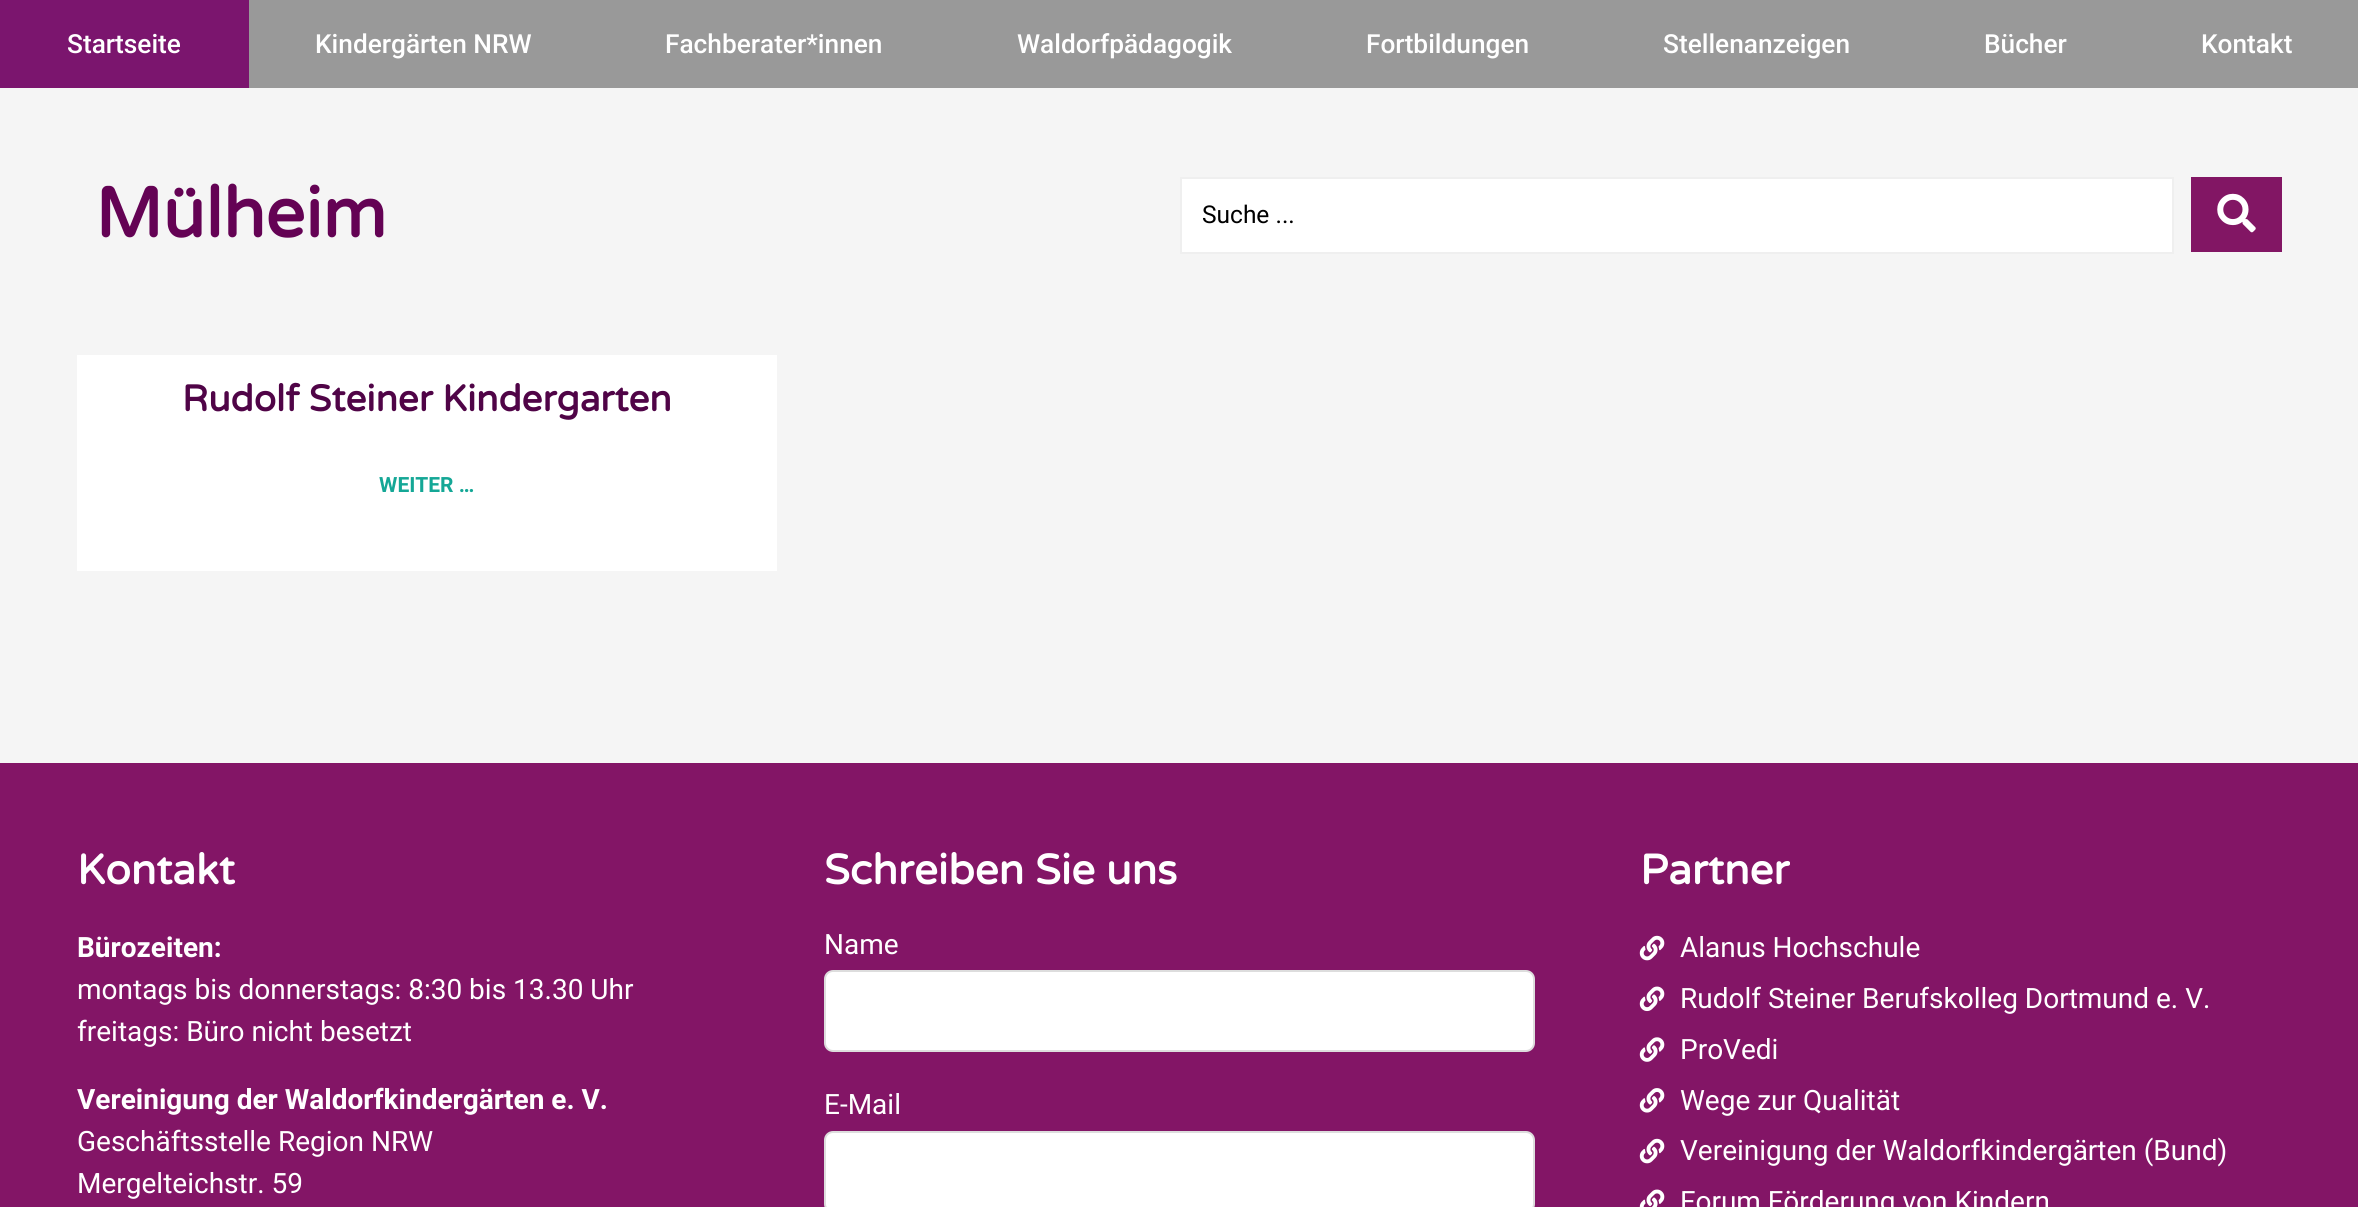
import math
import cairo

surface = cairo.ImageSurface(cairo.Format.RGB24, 2358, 1207)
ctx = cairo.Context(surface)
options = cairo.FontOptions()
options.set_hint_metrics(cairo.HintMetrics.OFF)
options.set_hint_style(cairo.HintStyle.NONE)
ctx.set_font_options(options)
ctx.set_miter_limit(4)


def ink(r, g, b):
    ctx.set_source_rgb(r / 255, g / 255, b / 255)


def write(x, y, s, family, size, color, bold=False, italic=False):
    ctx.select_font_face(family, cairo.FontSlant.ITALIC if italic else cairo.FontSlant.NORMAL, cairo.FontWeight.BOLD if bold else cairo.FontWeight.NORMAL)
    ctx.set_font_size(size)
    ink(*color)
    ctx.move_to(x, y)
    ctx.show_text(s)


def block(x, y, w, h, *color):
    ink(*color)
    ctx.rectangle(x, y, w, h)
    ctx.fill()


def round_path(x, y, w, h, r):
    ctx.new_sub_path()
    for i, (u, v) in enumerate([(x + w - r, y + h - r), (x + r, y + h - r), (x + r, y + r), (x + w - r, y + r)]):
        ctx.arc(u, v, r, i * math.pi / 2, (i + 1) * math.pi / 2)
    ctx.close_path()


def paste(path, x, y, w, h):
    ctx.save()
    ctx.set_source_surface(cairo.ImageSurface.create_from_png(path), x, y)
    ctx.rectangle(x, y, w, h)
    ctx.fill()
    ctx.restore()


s1 = dict(family="Roboto Medium", size=26.25, color=(255, 255, 255))
s2 = dict(family="Varela Round", size=70, color=(100, 2, 84), bold=True)
s3 = dict(family="Roboto", size=24.5, color=(0, 0, 0))
s4 = dict(family="Varela Round", size=36.75, color=(80, 4, 71), bold=True)
s5 = dict(family="Roboto", size=21, color=(20, 167, 150), bold=True)
s6 = dict(family="Varela Round", size=42, color=(255, 255, 255), bold=True)
s7 = dict(family="Roboto", size=28, color=(255, 255, 255), bold=True)
s8 = dict(family="Roboto", size=28, color=(255, 255, 255))

ink(245, 245, 245)
ctx.paint()
block(249, 0, 2109, 88, 153, 153, 153)
block(0, 0, 249, 88, 123, 21, 110)
write(67, 53, "Startseite", **s1)
write(315, 53, "Kindergärten NRW", **s1)
write(665, 53, "Fachberater*innen", **s1)
write(1017, 53, "Waldorfpädagogik", **s1)
write(1366, 53, "Fortbildungen", **s1)
write(1663, 53, "Stellenanzeigen", **s1)
write(1984, 53, "Bücher", **s1)
write(2201, 53, "Kontakt", **s1)
write(95, 237, "Mülheim", **s2)
ink(255, 255, 255)
ctx.rectangle(1181, 178, 992, 75)
ctx.fill_preserve()
ink(239, 239, 239)
ctx.stroke()
write(1202, 223, "Suche ...", **s3)
block(2191, 177, 91, 75, 130, 22, 100)
paste("pic1.png", 2217, 193, 39, 40)
block(77, 355, 700, 216, 255, 255, 255)
write(182, 411, "Rudolf Steiner Kindergarten", **s4)
write(379, 492, "WEITER …", **s5)
block(0, 763, 2358, 444, 131, 21, 102)
write(77, 884, "Kontakt", **s6)
write(77, 957, "Bürozeiten:", **s7)
write(77, 999, "montags bis donnerstags: 8:30 bis 13.30 Uhr", **s8)
write(77, 1041, "freitags: Büro nicht besetzt", **s8)
write(77, 1109, "Vereinigung der Waldorfkindergärten e. V.", **s7)
write(77, 1151, "Geschäftsstelle Region NRW", **s8)
write(77, 1193, "Mergelteichstr. 59", **s8)
write(824, 884, "Schreiben Sie uns", **s6)
write(824, 954, "Name", **s8)
round_path(825, 971, 709, 80, 8)
ctx.fill_preserve()
ink(221, 221, 221)
ctx.stroke()
write(824, 1114, "E-Mail", **s8)
round_path(825, 1132, 709, 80, 8)
ctx.fill_preserve()
ink(221, 221, 221)
ctx.stroke()
write(1640, 884, "Partner", **s6)
paste("pic2.png", 1639, 935, 26, 26)
write(1680, 957, "Alanus Hochschule", **s8)
paste("pic3.png", 1639, 986, 26, 26)
write(1680, 1008, "Rudolf Steiner Berufskolleg Dortmund e. V.", **s8)
paste("pic4.png", 1639, 1037, 26, 25)
write(1680, 1059, "ProVedi", **s8)
paste("pic5.png", 1639, 1088, 26, 25)
write(1680, 1110, "Wege zur Qualität", **s8)
paste("pic2.png", 1639, 1138, 26, 26)
write(1680, 1160, "Vereinigung der Waldorfkindergärten (Bund)", **s8)
paste("pic6.png", 1639, 1189, 26, 18)
write(1680, 1211, "Forum Förderung von Kindern", **s8)
surface.write_to_png("screenshot.png")
